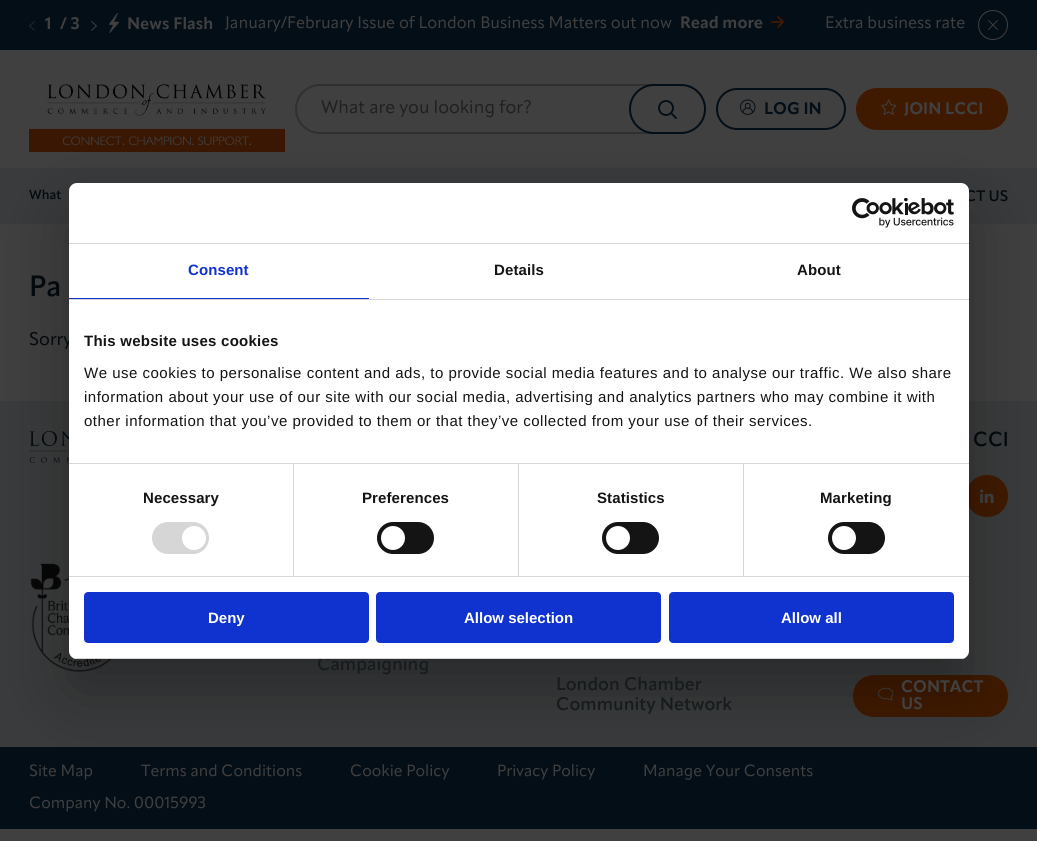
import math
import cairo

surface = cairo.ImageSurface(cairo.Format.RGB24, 1037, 841)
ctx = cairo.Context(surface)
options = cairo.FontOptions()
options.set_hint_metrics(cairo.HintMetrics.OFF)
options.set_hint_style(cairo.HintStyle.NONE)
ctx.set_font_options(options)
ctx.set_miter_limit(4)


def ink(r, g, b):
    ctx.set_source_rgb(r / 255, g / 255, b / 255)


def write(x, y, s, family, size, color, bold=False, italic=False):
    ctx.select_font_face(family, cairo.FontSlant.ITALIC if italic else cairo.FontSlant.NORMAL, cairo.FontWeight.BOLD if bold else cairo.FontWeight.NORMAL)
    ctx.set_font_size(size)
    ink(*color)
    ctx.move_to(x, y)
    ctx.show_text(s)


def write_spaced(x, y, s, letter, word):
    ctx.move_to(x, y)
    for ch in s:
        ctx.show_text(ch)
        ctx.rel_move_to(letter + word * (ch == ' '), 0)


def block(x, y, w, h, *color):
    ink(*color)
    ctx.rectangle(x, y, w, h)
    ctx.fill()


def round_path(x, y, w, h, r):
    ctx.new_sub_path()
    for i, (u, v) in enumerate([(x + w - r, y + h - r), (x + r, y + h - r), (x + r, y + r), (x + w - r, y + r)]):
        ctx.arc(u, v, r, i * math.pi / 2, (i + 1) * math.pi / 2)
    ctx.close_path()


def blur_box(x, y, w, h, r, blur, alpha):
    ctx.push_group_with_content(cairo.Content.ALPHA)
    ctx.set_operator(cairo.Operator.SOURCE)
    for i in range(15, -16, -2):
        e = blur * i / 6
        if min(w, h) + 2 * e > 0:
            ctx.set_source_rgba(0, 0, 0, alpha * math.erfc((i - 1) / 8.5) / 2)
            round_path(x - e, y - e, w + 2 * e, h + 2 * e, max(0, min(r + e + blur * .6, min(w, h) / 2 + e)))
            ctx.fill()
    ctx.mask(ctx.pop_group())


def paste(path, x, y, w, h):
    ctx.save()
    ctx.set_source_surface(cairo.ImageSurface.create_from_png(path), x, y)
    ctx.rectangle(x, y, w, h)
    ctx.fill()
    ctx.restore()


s1 = dict(family="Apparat", size=16.5, color=(64, 64, 64), bold=True)
s2 = dict(family="Apparat", size=16.5, color=(64, 64, 64))
s3 = dict(family="Apparat", size=18, color=(32, 32, 32))
s4 = dict(family="Apparat", size=16.5, color=(4, 14, 23), bold=True)
s5 = dict(family="Apparat SemiBold", size=13, color=(3, 10, 14))
s6 = dict(family="Apparat SemiBold", size=15, color=(3, 10, 14))
s7 = dict(family="Apparat SemiBold", size=29, color=(3, 10, 14))
s8 = dict(family="Apparat", size=18, color=(3, 10, 14))
s9 = dict(family="Apparat SemiBold", size=18, color=(22, 27, 30))
s10 = dict(family="Liberation Sans", size=15, color=(255, 255, 255), bold=True)
s11 = dict(family="Apparat SemiBold", size=20, color=(3, 10, 14))
s12 = dict(family="Apparat", size=16, color=(64, 64, 64))

ink(64, 64, 64)
ctx.paint()
block(0, 0, 1037, 50, 4, 14, 23)
paste("pic1.png", 29, 21, 6, 10)
write(45, 29, "1", **s1)
write(60, 29, "/ 3", **s1)
paste("pic2.png", 91, 21, 6, 10)
paste("pic3.png", 109, 13, 10, 20)
write(127, 29, "News Flash", **s1)
ctx.save()
ctx.rectangle(225, 16, 447, 18)
ctx.clip()
write(225, 28, "January/February Issue of London Business Matters out now", **s2)
ctx.restore()
write(680, 28, "Read more", **s1)
paste("pic4.png", 771, 16, 13, 12)
write(825, 28, "Extra business rate", **s2)
ctx.new_path()
ctx.arc(993, 25, 14.5, 0, 2 * math.pi)
ctx.set_line_width(1)
ctx.stroke()
ctx.new_path()
ctx.move_to(997.5, 20.5)
ctx.line_to(988.5, 29.5)
ctx.move_to(988.5, 20.5)
ctx.line_to(997.5, 29.5)
ctx.set_line_width(0.9)
ctx.set_line_cap(cairo.LineCap.ROUND)
ctx.stroke()
paste("pic5.png", 29, 84, 256, 68)
round_path(296, 85, 409, 48, 24)
ink(48, 48, 48)
ctx.set_line_width(2)
ctx.set_line_cap(cairo.LineCap.BUTT)
ctx.stroke()
ctx.save()
ctx.rectangle(321, 100, 355, 18)
ctx.clip()
write(321, 113, "What are you looking for?", **s3)
ctx.restore()
ink(64, 64, 64)
round_path(630, 85, 75, 48, 24)
ctx.fill_preserve()
ink(4, 14, 23)
ctx.stroke()
ctx.arc(666, 108, 7, 0, 2 * math.pi)
ctx.set_line_width(1.9)
ctx.stroke()
ctx.new_path()
ctx.move_to(672, 114)
ctx.line_to(676, 118)
ctx.set_line_cap(cairo.LineCap.ROUND)
ctx.stroke()
round_path(717, 89, 128, 40, 20)
ctx.set_line_width(2)
ctx.set_line_cap(cairo.LineCap.BUTT)
ctx.stroke()
paste("pic6.png", 740, 99, 16, 16)
write(764, 114, "LOG IN", **s4)
ctx.save()
round_path(856, 88, 152, 42, 21)
ctx.clip()
block(858, 90, 148, 38, 64, 26, 0)
ctx.restore()
round_path(857, 89, 150, 40, 20)
ink(64, 26, 0)
ctx.stroke()
paste("pic7.png", 881, 99, 15, 16)
write(904, 114, "JOIN LCCI", **s1)
block(0, 168, 1037, 56, 58, 59, 60)
write(29, 199, "What", **s5)
write(965, 201, "CT US", **s6)
write(29, 296, "Pa", **s7)
write(29, 345, "Sorry", **s8)
block(0, 401, 1037, 346, 58, 59, 60)
paste("pic9.png", 29, 431, 40, 32)
ctx.save()
round_path(966, 475, 42, 42, 21)
ctx.clip()
block(969, 477, 37, 38, 64, 26, 0)
ctx.restore()
ctx.arc(987, 496, 20, 0, 2 * math.pi)
ink(64, 26, 0)
ctx.stroke()
paste("pic10.png", 980, 489, 14, 14)
paste("pic11.png", 30, 563, 82, 109)
ctx.save()
round_path(853, 675, 155, 42, 21)
ctx.clip()
block(855, 677, 151, 38, 64, 26, 0)
ctx.restore()
round_path(854, 676, 153, 40, 20)
ctx.stroke()
paste("pic12.png", 878, 687, 15, 14)
block(0, 747, 1037, 82, 4, 14, 23)
ink(0, 0, 0)
blur_box(69, 215, 900, 476, 8, 34, 0.3)
write(317, 670, "Campaigning", **s9)
ink(255, 255, 255)
round_path(69, 183, 900, 476, 8)
ctx.fill()
block(69, 243, 900, 1, 214, 214, 214)
paste("pic8.png", 852, 198, 102, 30)
block(69, 299, 900, 1, 214, 214, 214)
block(69, 298, 300, 1, 16, 50, 207)
ctx.select_font_face("Liberation Sans", cairo.FontSlant.NORMAL, cairo.FontWeight.BOLD)
ctx.set_font_size(15)
write_spaced(188, 275, "Consent", 0.1, 0)
ink(20, 20, 20)
write_spaced(494, 275, "Details", 0.1, 0)
write_spaced(797, 275, "About", 0.1, 0)
block(69, 463, 900, 1, 214, 214, 214)
ink(20, 20, 20)
write_spaced(84, 346, "This website uses cookies", 0.25, 0)
ctx.select_font_face("Liberation Sans")
write_spaced(84, 378, "We use cookies to personalise content and ads, to provide social media features and to analyse our traffic. We also share", 0.5, 0)
write_spaced(84, 402, "information about your use of our site with our social media, advertising and analytics partners who may combine it with", 0.5, 0)
write_spaced(84, 426, "other information that you’ve provided to them or that they’ve collected from your use of their services.", 0.5, 0)
block(69, 576, 900, 1, 214, 214, 214)
block(293, 464, 1, 112, 214, 214, 214)
ctx.select_font_face("Liberation Sans", cairo.FontSlant.NORMAL, cairo.FontWeight.BOLD)
ink(20, 20, 20)
write_spaced(143, 503, "Necessary", 0.1, 0)
ink(214, 214, 214)
round_path(152, 522, 57, 32, 16)
ctx.fill()
ink(255, 255, 255)
ctx.arc(194, 538, 12, 0, 2 * math.pi)
ctx.fill()
block(518, 464, 1, 112, 214, 214, 214)
ink(20, 20, 20)
write_spaced(362, 503, "Preferences", 0.1, 0)
round_path(377, 522, 57, 32, 16)
ctx.fill()
ink(255, 255, 255)
ctx.arc(393, 538, 12, 0, 2 * math.pi)
ctx.fill()
block(743, 464, 1, 112, 214, 214, 214)
ink(20, 20, 20)
write_spaced(597, 503, "Statistics", 0.1, 0)
round_path(602, 522, 57, 32, 16)
ctx.fill()
ink(255, 255, 255)
ctx.arc(618, 538, 12, 0, 2 * math.pi)
ctx.fill()
ink(20, 20, 20)
write_spaced(820, 503, "Marketing", 0.1, 0)
round_path(828, 522, 57, 32, 16)
ctx.fill()
ink(255, 255, 255)
ctx.arc(844, 538, 12, 0, 2 * math.pi)
ctx.fill()
ctx.save()
round_path(69, 183, 900, 476, 8)
ctx.clip()
block(69, 658, 900, 1, 214, 214, 214)
ctx.restore()
ink(16, 50, 207)
round_path(85, 593, 283, 49, 3)
ctx.fill_preserve()
ctx.stroke()
write(208, 623, "Deny", **s10)
ink(16, 50, 207)
round_path(377, 593, 283, 49, 3)
ctx.fill_preserve()
ctx.stroke()
write(464, 623, "Allow selection", **s10)
ink(16, 50, 207)
round_path(670, 593, 283, 49, 3)
ctx.fill_preserve()
ctx.stroke()
write(781, 623, "Allow all", **s10)
write(973, 446, "CCI", **s11)
write(556, 690, "London Chamber", **s9)
write(556, 710, "Community Network", **s9)
write(901, 692, "CONTACT", **s1)
write(901, 709, "US", **s1)
write(29, 776, "Site Map", **s12)
write(141, 776, "Terms and Conditions", **s12)
write(350, 776, "Cookie Policy", **s12)
write(497, 776, "Privacy Policy", **s12)
write(643, 776, "Manage Your Consents", **s12)
write(29, 808, "Company No. 00015993", **s12)
surface.write_to_png("screenshot.png")
